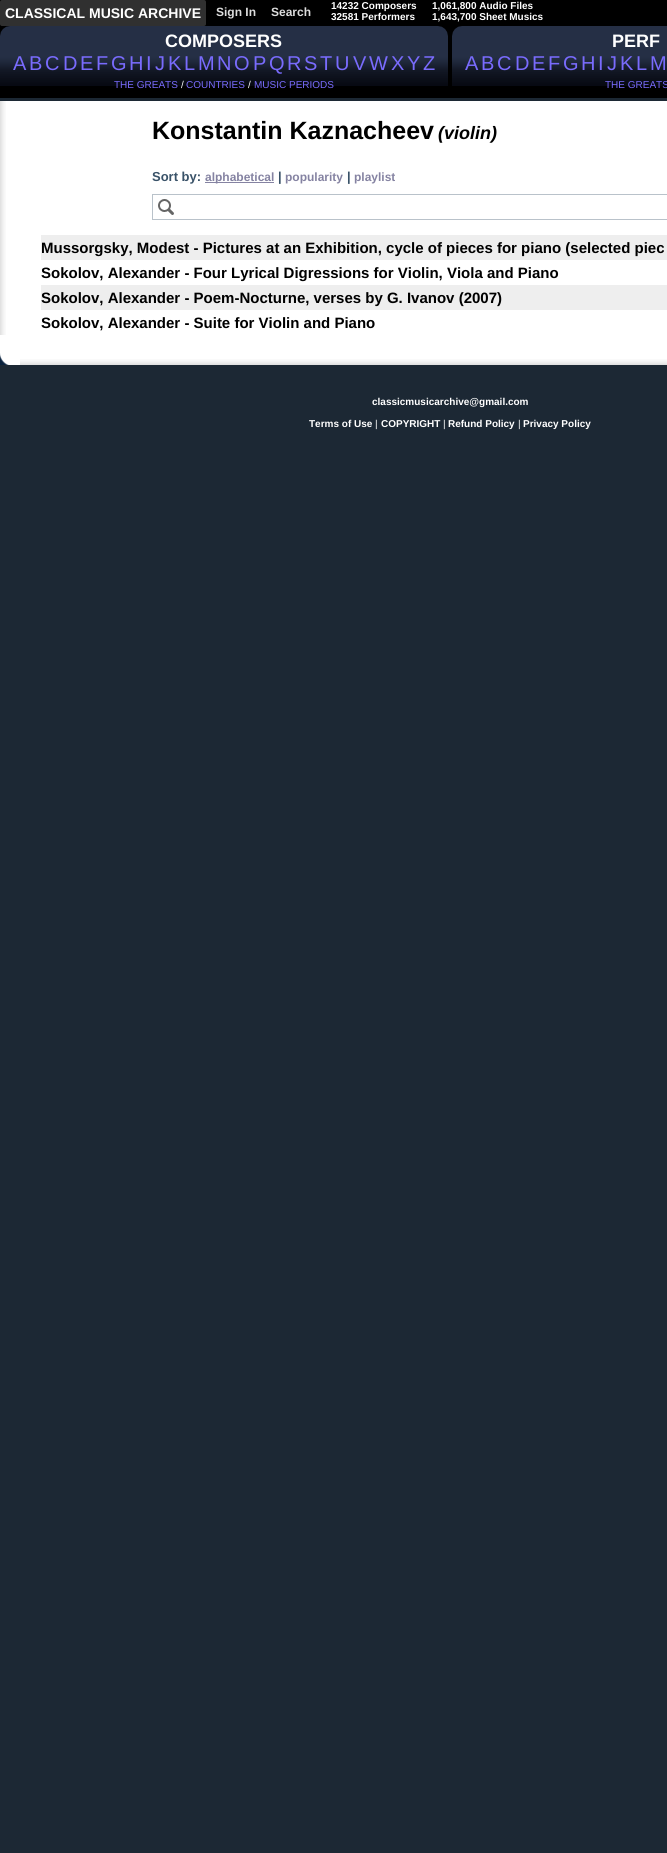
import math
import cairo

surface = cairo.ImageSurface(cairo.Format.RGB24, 667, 1853)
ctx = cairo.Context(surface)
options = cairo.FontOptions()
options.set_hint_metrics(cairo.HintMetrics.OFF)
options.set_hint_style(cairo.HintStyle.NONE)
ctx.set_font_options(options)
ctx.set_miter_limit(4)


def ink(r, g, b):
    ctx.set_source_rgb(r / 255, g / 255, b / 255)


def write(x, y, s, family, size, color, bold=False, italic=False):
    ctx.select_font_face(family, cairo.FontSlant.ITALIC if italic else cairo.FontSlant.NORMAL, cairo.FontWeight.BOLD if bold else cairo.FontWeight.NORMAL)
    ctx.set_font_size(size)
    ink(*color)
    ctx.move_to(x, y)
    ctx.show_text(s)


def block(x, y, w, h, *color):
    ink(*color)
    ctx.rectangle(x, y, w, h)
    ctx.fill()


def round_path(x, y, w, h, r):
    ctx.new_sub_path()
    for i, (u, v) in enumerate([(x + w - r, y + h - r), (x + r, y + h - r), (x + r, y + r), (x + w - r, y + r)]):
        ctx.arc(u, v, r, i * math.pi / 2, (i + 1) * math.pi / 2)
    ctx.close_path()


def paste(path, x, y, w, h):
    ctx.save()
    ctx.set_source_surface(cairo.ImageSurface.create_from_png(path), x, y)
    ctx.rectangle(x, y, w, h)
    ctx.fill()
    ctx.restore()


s1 = dict(family="Liberation Sans", size=14, color=(255, 255, 255), bold=True)
s2 = dict(family="Liberation Sans", size=12, color=(221, 221, 221), bold=True)
s3 = dict(family="Liberation Sans", size=10, color=(255, 255, 255), bold=True)
s4 = dict(family="Liberation Sans", size=18, color=(255, 255, 255), bold=True)
s5 = dict(family="Liberation Sans", size=20, color=(121, 107, 253))
s6 = dict(family="Liberation Sans", size=10, color=(121, 107, 253))
s7 = dict(family="Liberation Sans", size=10, color=(255, 255, 255))
s8 = dict(family="Liberation Sans", size=25, color=(0, 0, 0), bold=True)
s9 = dict(family="Liberation Sans", size=18, color=(0, 0, 0), bold=True, italic=True)
s10 = dict(family="Liberation Sans", size=13, color=(57, 82, 104), bold=True)
s11 = dict(family="Liberation Sans", size=12, color=(133, 131, 162), bold=True)
s12 = dict(family="Liberation Sans", size=15, color=(0, 0, 0), bold=True)

ink(28, 40, 52)
ctx.paint()
block(0, 0, 667, 98, 0, 0, 0)
ink(48, 48, 48)
round_path(0, 0, 206, 26, 2)
ctx.fill()
write(5, 18, "CLASSICAL MUSIC ARCHIVE", **s1)
write(216, 16, "Sign In", **s2)
write(271, 16, "Search", **s2)
write(331, 9, "14232 Composers", **s3)
write(331, 20, "32581 Performers", **s3)
write(432, 9, "1,061,800 Audio Files", **s3)
write(432, 20, "1,643,700 Sheet Musics", **s3)
paste("pic1.png", 0, 26, 448, 60)
write(165, 47, "COMPOSERS", **s4)
write(13, 70, "A", **s5)
write(29, 70, "B", **s5)
write(45, 70, "C", **s5)
write(63, 70, "D", **s5)
write(80, 70, "E", **s5)
write(96, 70, "F", **s5)
write(111, 70, "G", **s5)
write(129, 70, "H", **s5)
write(146, 70, "I", **s5)
write(155, 70, "J", **s5)
write(168, 70, "K", **s5)
write(184, 70, "L", **s5)
write(198, 70, "M", **s5)
write(217, 70, "N", **s5)
write(234, 70, "O", **s5)
write(253, 70, "P", **s5)
write(269, 70, "Q", **s5)
write(287, 70, "R", **s5)
write(304, 70, "S", **s5)
write(320, 70, "T", **s5)
write(335, 70, "U", **s5)
write(353, 70, "V", **s5)
write(369, 70, "W", **s5)
write(391, 70, "X", **s5)
write(407, 70, "Y", **s5)
write(423, 70, "Z", **s5)
write(114, 88, "THE GREATS", **s6)
write(181, 88, "/", **s7)
write(186, 88, "COUNTRIES", **s6)
write(248, 88, "/", **s7)
write(254, 88, "MUSIC PERIODS", **s6)
paste("pic2.png", 452, 26, 215, 60)
write(612, 47, "PERF", **s4)
write(465, 70, "A", **s5)
write(481, 70, "B", **s5)
write(497, 70, "C", **s5)
write(515, 70, "D", **s5)
write(532, 70, "E", **s5)
write(548, 70, "F", **s5)
write(563, 70, "G", **s5)
write(581, 70, "H", **s5)
write(598, 70, "I", **s5)
write(607, 70, "J", **s5)
write(620, 70, "K", **s5)
write(636, 70, "L", **s5)
write(650, 70, "M", **s5)
write(605, 88, "THE GREATS", **s6)
block(0, 101, 667, 264, 255, 255, 255)
paste("pic3.png", 0, 101, 6, 234)
write(152, 139, "Konstantin Kaznacheev", **s8)
write(438, 139, "(violin)", **s9)
write(152, 181, "Sort by:", **s10)
block(205, 182, 69, 1, 133, 131, 162)
write(205, 181, "alphabetical", **s11)
write(278, 181, "|", **s10)
write(285, 181, "popularity", **s11)
write(347, 181, "|", **s10)
write(354, 181, "playlist", **s11)
paste("pic4.png", 158, 199, 16, 16)
ctx.rectangle(152.5, 194.5, 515, 25)
ink(185, 194, 202)
ctx.set_line_width(1)
ctx.stroke()
block(41, 235, 626, 25, 238, 238, 238)
write(41, 253, "Mussorgsky, Modest - Pictures at an Exhibition, cycle of pieces for piano (selected piec", **s12)
write(41, 278, "Sokolov, Alexander - Four Lyrical Digressions for Violin, Viola and Piano", **s12)
block(41, 285, 626, 25, 238, 238, 238)
write(41, 303, "Sokolov, Alexander - Poem-Nocturne, verses by G. Ivanov (2007)", **s12)
write(41, 328, "Sokolov, Alexander - Suite for Violin and Piano", **s12)
paste("pic5.png", 0, 353, 9, 12)
paste("pic6.png", 20, 359, 647, 6)
write(372, 405, "classicmusicarchive@gmail.com", **s3)
write(309, 427, "Terms of Use", **s3)
write(375, 427, "|", **s7)
write(381, 427, "COPYRIGHT", **s3)
write(443, 427, "|", **s7)
write(448, 427, "Refund Policy", **s3)
write(518, 427, "|", **s7)
write(523, 427, "Privacy Policy", **s3)
surface.write_to_png("screenshot.png")
